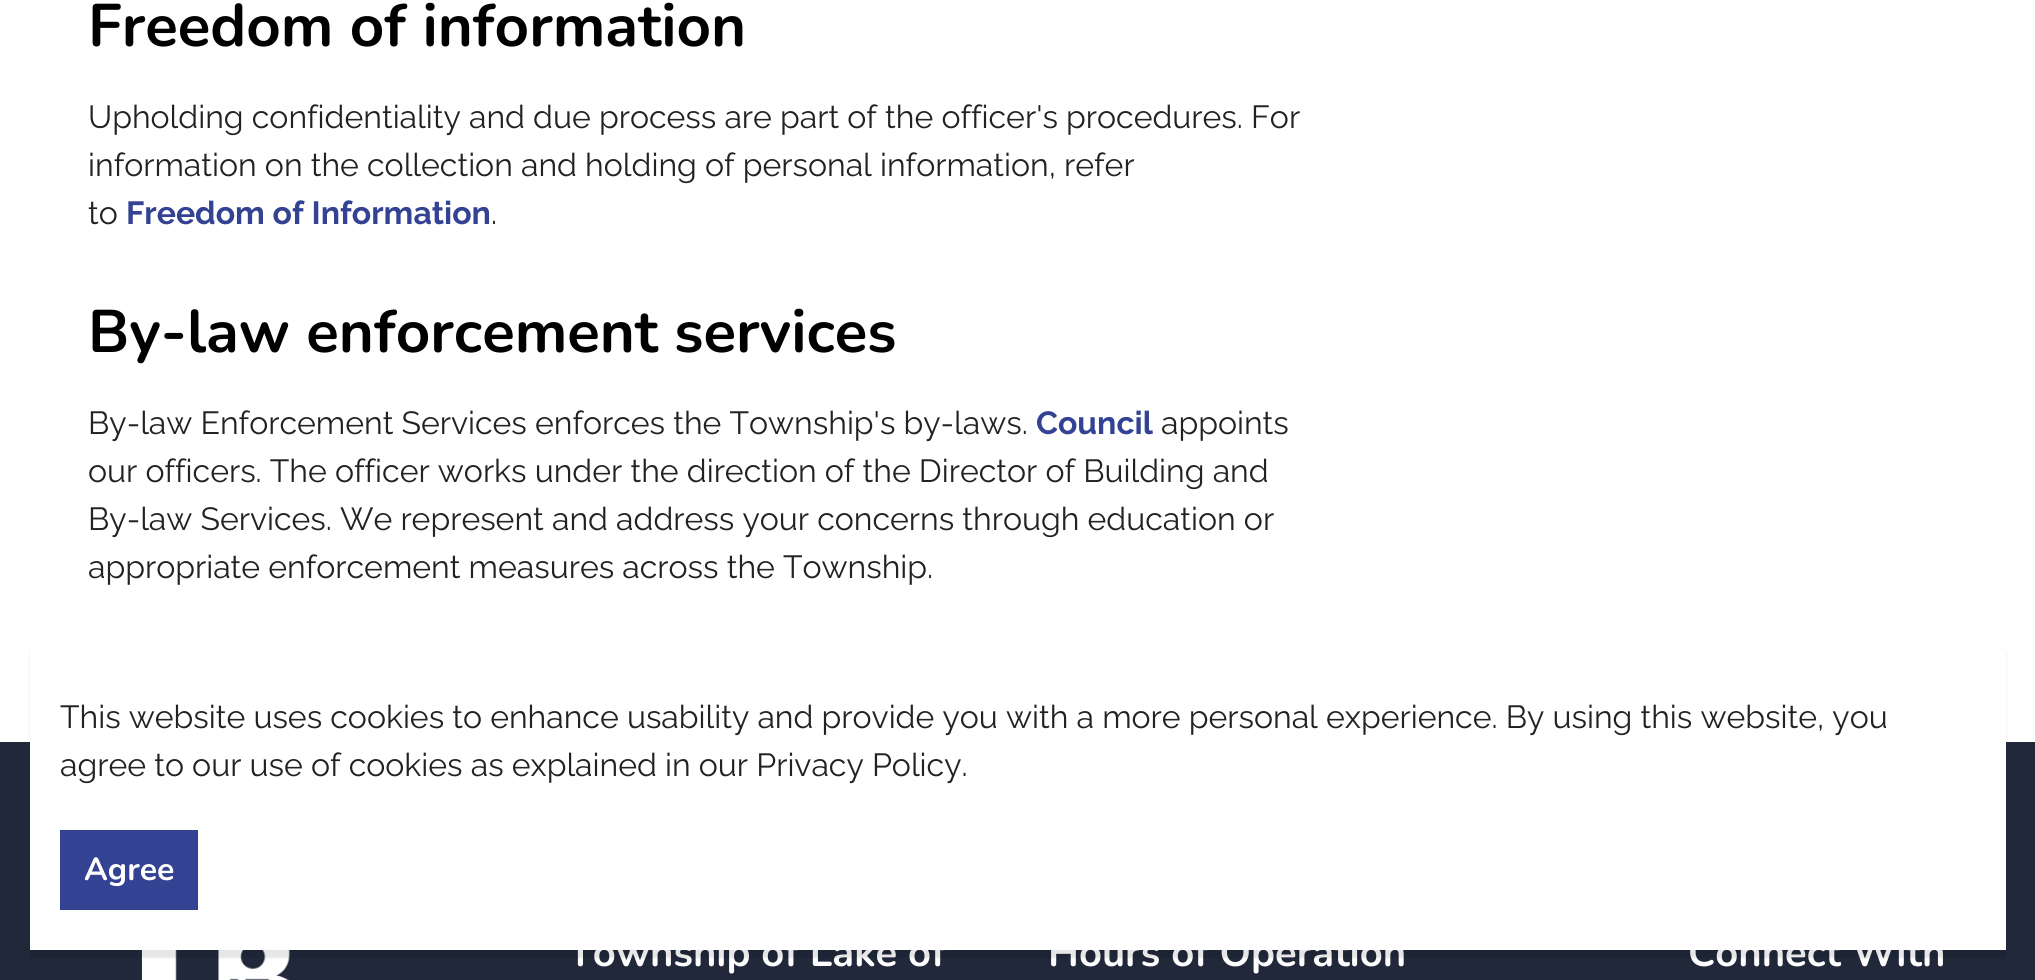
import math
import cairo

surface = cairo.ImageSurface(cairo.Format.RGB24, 2035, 980)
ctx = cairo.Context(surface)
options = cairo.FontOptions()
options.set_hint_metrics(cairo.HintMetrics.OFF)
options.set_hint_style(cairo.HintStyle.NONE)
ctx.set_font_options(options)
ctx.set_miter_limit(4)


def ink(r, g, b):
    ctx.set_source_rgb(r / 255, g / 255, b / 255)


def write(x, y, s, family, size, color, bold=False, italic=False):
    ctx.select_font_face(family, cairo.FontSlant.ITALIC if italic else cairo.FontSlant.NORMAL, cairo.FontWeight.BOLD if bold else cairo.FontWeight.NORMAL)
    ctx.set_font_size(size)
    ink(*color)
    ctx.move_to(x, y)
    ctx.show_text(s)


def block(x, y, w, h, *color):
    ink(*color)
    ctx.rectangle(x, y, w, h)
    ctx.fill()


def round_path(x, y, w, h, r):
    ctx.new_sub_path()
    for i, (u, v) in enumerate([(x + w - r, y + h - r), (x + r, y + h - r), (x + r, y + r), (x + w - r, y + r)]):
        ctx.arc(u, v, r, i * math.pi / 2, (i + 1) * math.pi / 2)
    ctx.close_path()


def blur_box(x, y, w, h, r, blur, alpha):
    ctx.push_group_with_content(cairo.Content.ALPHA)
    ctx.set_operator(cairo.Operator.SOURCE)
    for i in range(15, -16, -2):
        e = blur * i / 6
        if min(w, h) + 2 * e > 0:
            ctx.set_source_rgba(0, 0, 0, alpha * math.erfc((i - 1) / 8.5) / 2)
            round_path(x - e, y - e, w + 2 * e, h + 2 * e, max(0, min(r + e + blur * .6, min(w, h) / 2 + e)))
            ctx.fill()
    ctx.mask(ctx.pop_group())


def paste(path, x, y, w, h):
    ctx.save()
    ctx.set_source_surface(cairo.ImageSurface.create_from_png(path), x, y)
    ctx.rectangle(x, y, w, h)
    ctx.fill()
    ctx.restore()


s1 = dict(family="Nunito", size=60, color=(0, 0, 0), bold=True)
s2 = dict(family="Raleway", size=32, color=(34, 34, 34))
s3 = dict(family="Raleway", size=32, color=(52, 66, 147), bold=True)
s4 = dict(family="Nunito", size=40, color=(255, 255, 255), bold=True)
s5 = dict(family="Nunito", size=32, color=(255, 255, 255), bold=True)

ink(255, 255, 255)
ctx.paint()
write(88, 46, "Freedom of information", **s1)
write(88, 128, "Upholding confidentiality and due process are part of the officer's procedures. For", **s2)
write(88, 176, "information on the collection and holding of personal information, refer", **s2)
write(88, 224, "to", **s2)
write(126, 224, "Freedom of Information", **s3)
write(491, 224, ".", **s2)
write(88, 352, "By-law enforcement services", **s1)
write(88, 434, "By-law Enforcement Services enforces the Township's by-laws.", **s2)
write(1036, 434, "Council", **s3)
write(1161, 434, "appoints", **s2)
write(88, 482, "our officers. The officer works under the direction of the Director of Building and", **s2)
write(88, 530, "By-law Services. We represent and address your concerns through education or", **s2)
write(88, 578, "appropriate enforcement measures across the Township.", **s2)
block(0, 742, 2035, 238, 32, 40, 58)
paste("pic1.png", 141, 950, 149, 30)
write(568, 966, "Township of Lake of", **s4)
write(1048, 966, "Hours of Operation", **s4)
write(1688, 966, "Connect With", **s4)
ink(0, 0, 0)
blur_box(30, 652, 1976, 306, 0, 1, 0.1)
block(30, 651, 1976, 299, 255, 255, 255)
write(60, 728, "This website uses cookies to enhance usability and provide you with a more personal experience. By using this website, you", **s2)
write(60, 776, "agree to our use of cookies as explained in our Privacy Policy.", **s2)
block(60, 830, 138, 80, 52, 66, 147)
write(84, 880, "Agree", **s5)
surface.write_to_png("screenshot.png")
